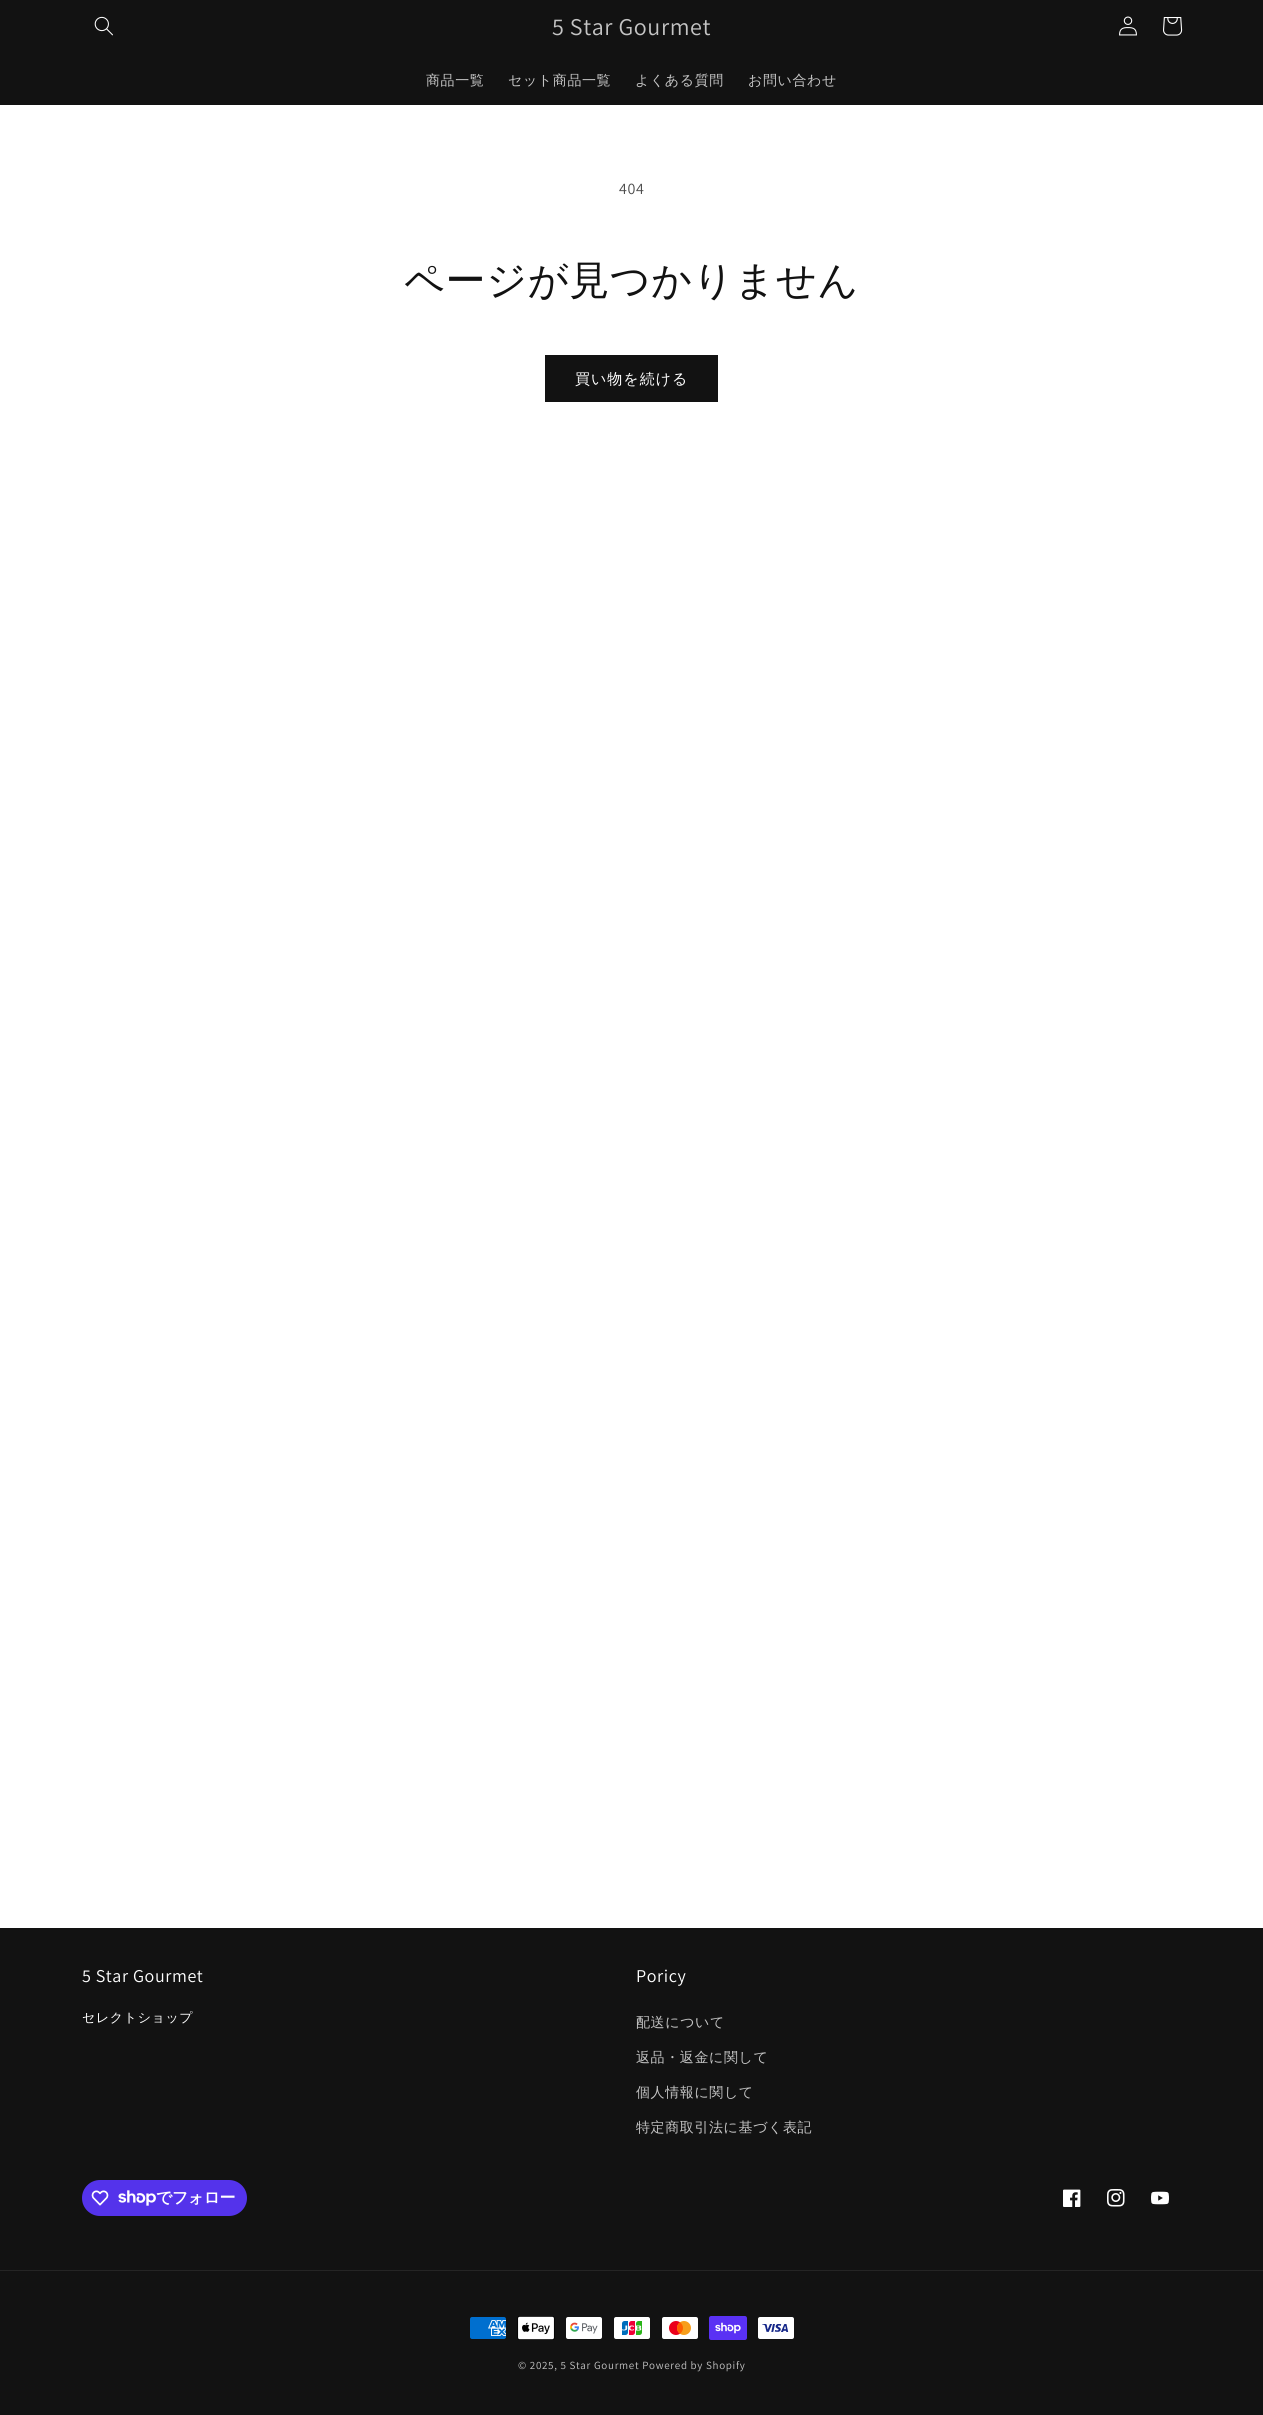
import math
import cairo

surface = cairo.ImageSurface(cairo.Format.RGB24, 1263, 2415)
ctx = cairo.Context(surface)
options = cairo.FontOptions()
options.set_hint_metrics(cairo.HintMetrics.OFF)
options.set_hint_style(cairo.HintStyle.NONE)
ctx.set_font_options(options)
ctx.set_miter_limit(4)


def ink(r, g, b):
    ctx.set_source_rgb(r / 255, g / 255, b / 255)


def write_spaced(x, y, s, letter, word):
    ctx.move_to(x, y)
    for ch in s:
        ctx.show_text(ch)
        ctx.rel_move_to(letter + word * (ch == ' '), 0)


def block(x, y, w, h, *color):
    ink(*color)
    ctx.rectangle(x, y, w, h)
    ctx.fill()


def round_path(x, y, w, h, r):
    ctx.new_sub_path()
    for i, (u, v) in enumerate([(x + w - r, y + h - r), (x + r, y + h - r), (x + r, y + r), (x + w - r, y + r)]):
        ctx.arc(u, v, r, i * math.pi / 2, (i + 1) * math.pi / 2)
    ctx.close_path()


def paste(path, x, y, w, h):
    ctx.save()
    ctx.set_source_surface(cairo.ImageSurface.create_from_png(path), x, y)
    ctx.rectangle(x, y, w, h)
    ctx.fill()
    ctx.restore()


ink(255, 255, 255)
ctx.paint()
block(0, 0, 1263, 105, 18, 18, 18)
paste("pic1.png", 94, 16, 19, 20)
ctx.select_font_face("Assistant")
ctx.set_font_size(24)
ink(196, 196, 196)
write_spaced(552, 35, "5 Star Gourmet", 0.6, 0)
paste("pic2.png", 1119, 16, 18, 20)
paste("pic3.png", 1163, 17, 20, 19)
ctx.select_font_face("WenQuanYi Zen Hei Medium")
ctx.set_font_size(14)
write_spaced(426, 85, "商品一覧", 0.6, 0)
write_spaced(508, 85, "セット商品一覧", 0.6, 0)
write_spaced(635, 85, "よくある質問", 0.6, 0)
write_spaced(748, 85, "お問い合わせ", 0.6, 0)
ctx.select_font_face("Assistant")
ctx.set_font_size(16)
ink(77, 77, 77)
write_spaced(619, 194, "404", 0.6, 0)
ctx.select_font_face("WenQuanYi Zen Hei Medium")
ctx.set_font_size(40)
ink(18, 18, 18)
write_spaced(404, 294, "ページが見つかりません", 0.6, 0)
block(545, 355, 173, 47, 18, 18, 18)
ctx.set_font_size(15)
ink(255, 255, 255)
write_spaced(575, 384, "買い物を続ける", 1, 0)
block(0, 1928, 1263, 487, 18, 18, 18)
ctx.select_font_face("Assistant")
ctx.set_font_size(18)
ink(255, 255, 255)
write_spaced(82, 1982, "5 Star Gourmet", 0.6, 0)
ctx.select_font_face("WenQuanYi Zen Hei Medium")
ctx.set_font_size(13)
write_spaced(82, 2022, "セレクトショップ", 0.6, 0)
ctx.select_font_face("Assistant")
ctx.set_font_size(18)
write_spaced(636, 1982, "Poricy", 0.6, 0)
ctx.select_font_face("WenQuanYi Zen Hei Medium")
ctx.set_font_size(14)
ink(196, 196, 196)
write_spaced(636, 2027, "配送について", 0.6, 0)
write_spaced(636, 2062, "返品・返金に関して", 0.6, 0)
write_spaced(636, 2097, "個人情報に関して", 0.6, 0)
write_spaced(636, 2132, "特定商取引法に基づく表記", 0.6, 0)
ink(84, 51, 235)
round_path(82, 2180, 165, 36, 18)
ctx.fill()
paste("pic4.png", 91, 2190, 18, 16)
paste("pic5.png", 118, 2190, 38, 16)
ctx.select_font_face("WenQuanYi Zen Hei", cairo.FontSlant.NORMAL, cairo.FontWeight.BOLD)
ctx.set_font_size(16)
ink(255, 255, 255)
write_spaced(156, 2203, "でフォロー", -0.5, 0)
paste("pic6.png", 1063, 2189, 18, 18)
paste("pic7.png", 1107, 2189, 18, 18)
paste("pic8.png", 1151, 2191, 18, 14)
block(0, 2270, 1263, 1, 37, 37, 37)
paste("pic9.png", 470, 2317, 36, 22)
paste("pic10.png", 517, 2316, 38, 24)
paste("pic11.png", 566, 2317, 36, 22)
paste("pic12.png", 614, 2317, 36, 22)
paste("pic13.png", 662, 2317, 36, 22)
paste("pic14.png", 709, 2316, 38, 24)
paste("pic15.png", 758, 2317, 36, 22)
ctx.select_font_face("Assistant")
ctx.set_font_size(11)
ink(196, 196, 196)
write_spaced(518, 2369, "© 2025, 5 Star Gourmet Powered by Shopify", 0.7, 0)
surface.write_to_png("screenshot.png")
